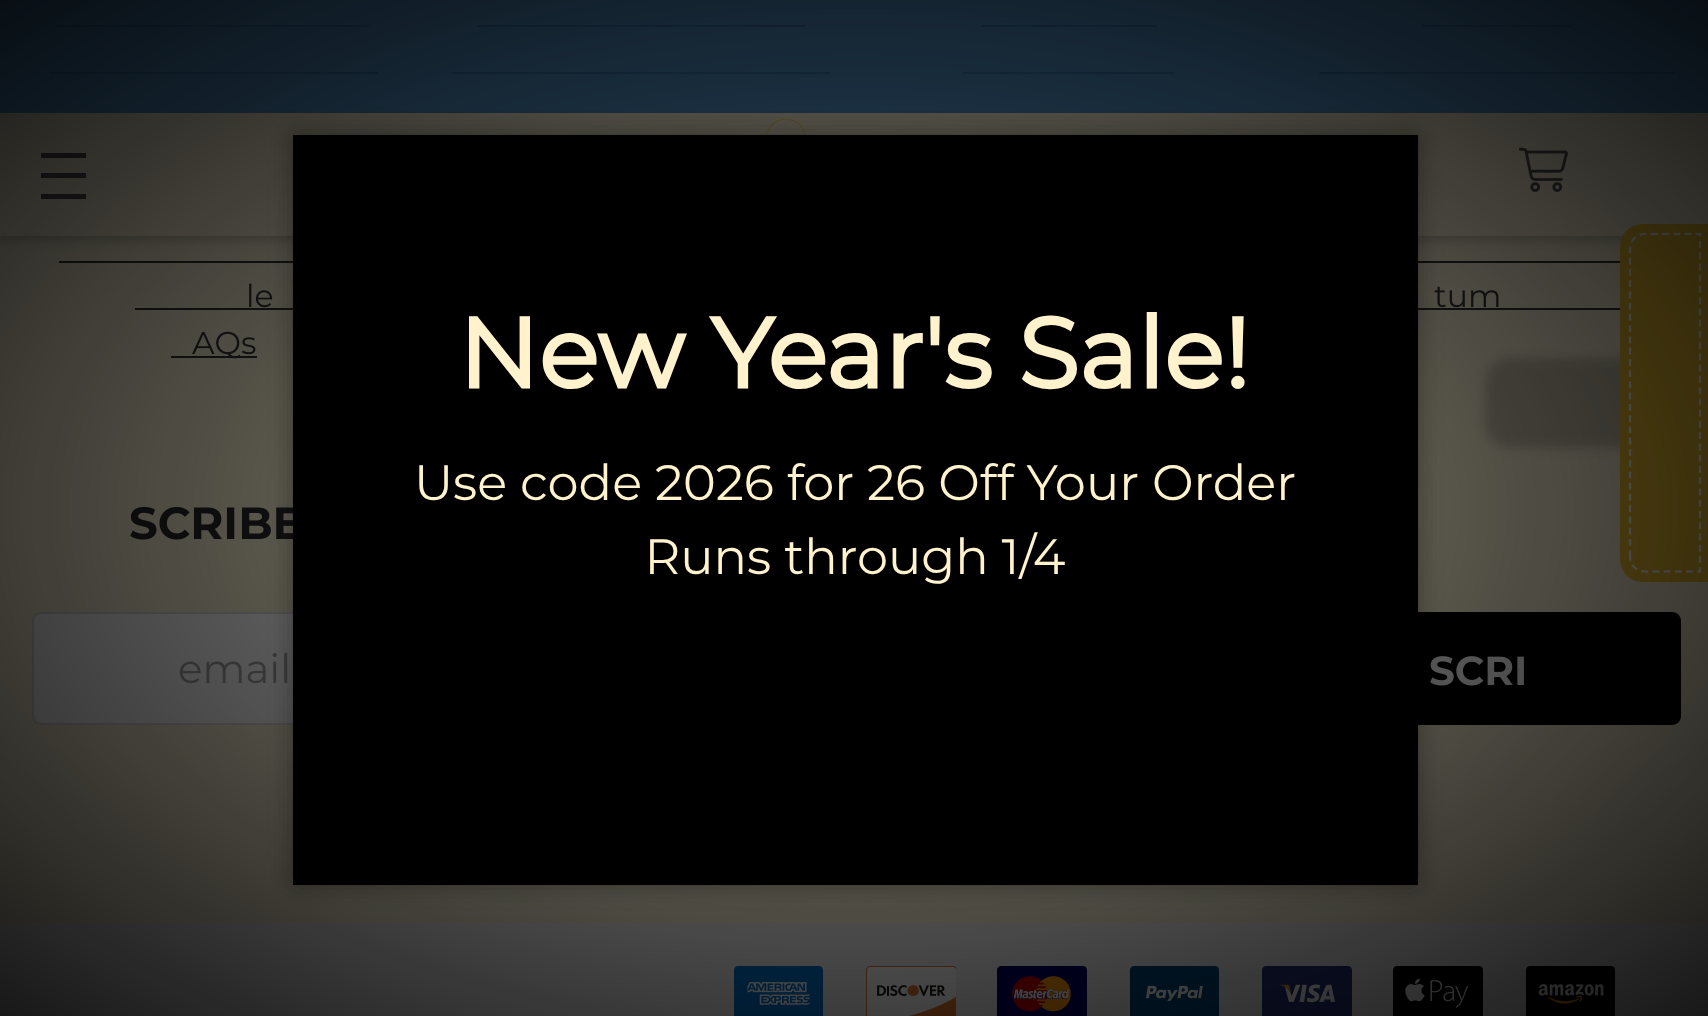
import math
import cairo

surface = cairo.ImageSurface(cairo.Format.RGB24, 1708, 1016)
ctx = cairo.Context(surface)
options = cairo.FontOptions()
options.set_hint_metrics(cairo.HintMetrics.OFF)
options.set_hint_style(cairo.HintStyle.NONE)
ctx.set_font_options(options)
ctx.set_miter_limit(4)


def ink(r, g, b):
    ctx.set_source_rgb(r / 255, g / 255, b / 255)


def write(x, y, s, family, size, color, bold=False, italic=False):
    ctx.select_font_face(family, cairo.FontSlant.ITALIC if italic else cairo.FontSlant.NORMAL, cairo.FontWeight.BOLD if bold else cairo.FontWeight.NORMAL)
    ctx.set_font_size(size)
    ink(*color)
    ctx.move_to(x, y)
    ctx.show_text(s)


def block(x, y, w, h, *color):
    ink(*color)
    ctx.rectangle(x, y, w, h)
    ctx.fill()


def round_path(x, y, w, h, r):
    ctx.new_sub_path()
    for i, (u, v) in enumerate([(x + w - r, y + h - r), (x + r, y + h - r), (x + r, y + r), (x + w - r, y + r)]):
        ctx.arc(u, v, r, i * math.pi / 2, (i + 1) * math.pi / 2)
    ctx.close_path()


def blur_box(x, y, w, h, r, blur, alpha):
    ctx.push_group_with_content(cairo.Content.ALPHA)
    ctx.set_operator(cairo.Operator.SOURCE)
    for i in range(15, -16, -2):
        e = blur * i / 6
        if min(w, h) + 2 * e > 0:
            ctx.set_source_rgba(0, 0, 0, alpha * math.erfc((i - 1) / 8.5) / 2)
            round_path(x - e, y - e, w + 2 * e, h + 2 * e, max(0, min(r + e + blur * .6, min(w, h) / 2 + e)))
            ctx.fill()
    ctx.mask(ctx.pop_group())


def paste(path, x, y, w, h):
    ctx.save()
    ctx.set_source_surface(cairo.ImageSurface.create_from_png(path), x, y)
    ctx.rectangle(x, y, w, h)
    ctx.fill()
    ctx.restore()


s1 = dict(family="Montserrat", size=31.5, color=(51, 51, 51))
s2 = dict(family="Montserrat", size=45, color=(40, 40, 40), bold=True)
s3 = dict(family="Montserrat", size=40.5, color=(165, 165, 165))
s4 = dict(family="Montserrat", size=40.5, color=(255, 255, 255), bold=True)

ink(246, 238, 209)
ctx.paint()
ink(0, 0, 0)
blur_box(0, 117, 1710, 124, 0, 5.5, 0.2)
block(477, 25, 329, 2, 51, 51, 51)
block(452, 72, 378, 2, 51, 51, 51)
block(981, 25, 176, 2, 51, 51, 51)
block(963, 72, 212, 2, 51, 51, 51)
block(59, 25, 310, 2, 51, 51, 51)
block(50, 72, 328, 2, 51, 51, 51)
block(1422, 25, 149, 2, 51, 51, 51)
block(1319, 72, 355, 2, 51, 51, 51)
ctx.set_source_rgba(0.239, 0.522, 0.776, 0.88)
ctx.rectangle(0, 0, 1708, 113)
ctx.fill()
ink(0, 0, 0)
blur_box(1485, 358, 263, 90, 23, 5.5, 0.2)
block(0, 113, 1708, 123, 246, 238, 209)
ink(241, 194, 50)
ctx.new_path()
ctx.move_to(1620, 559)
ctx.line_to(1620, 246)
ctx.curve_to(1620, 234, 1630, 224, 1643, 224)
ctx.line_to(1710, 224)
ctx.line_to(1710, 582)
ctx.line_to(1643, 582)
ctx.curve_to(1630, 582, 1620, 572, 1620, 559)
ctx.close_path()
ctx.fill()
ctx.new_path()
ctx.move_to(1630, 557)
ctx.line_to(1630, 248.5)
ctx.curve_to(1630, 240.5, 1636.5, 234, 1645, 234)
ctx.line_to(1700, 234)
ctx.line_to(1700, 571.5)
ctx.line_to(1645, 571.5)
ctx.curve_to(1636.5, 571.5, 1630, 565, 1630, 557)
ctx.close_path()
ink(255, 255, 255)
ctx.set_line_width(2.2)
ctx.set_dash([6.75, 4.5])
ctx.stroke()
block(41, 173, 45, 5, 80, 80, 80)
block(41, 153, 45, 5, 80, 80, 80)
block(41, 194, 45, 5, 80, 80, 80)
paste("pic2.png", 765, 119, 42, 16)
paste("pic3.png", 1519, 147, 49, 45)
write(246, 307, "le", **s1)
block(59, 261, 234, 2, 51, 51, 51)
block(135, 308, 158, 2, 51, 51, 51)
block(171, 356, 86, 2, 51, 51, 51)
write(192, 354, "AQs", **s1)
block(1418, 261, 202, 2, 51, 51, 51)
write(1434, 307, "tum", **s1)
block(1418, 308, 202, 2, 51, 51, 51)
write(129, 539, "SCRIBE", **s2)
ink(255, 255, 255)
ctx.new_path()
ctx.move_to(41, 613)
ctx.line_to(1246, 613)
ctx.line_to(1246, 724)
ctx.line_to(41, 724)
ctx.curve_to(36.5, 724, 33, 720.5, 33, 716)
ctx.line_to(33, 621)
ctx.curve_to(33, 616.5, 36.5, 613, 41, 613)
ctx.close_path()
ctx.fill_preserve()
ink(220, 220, 220)
ctx.set_line_width(2)
ctx.set_dash([])
ctx.stroke()
write(178, 683, "email", **s3)
ink(0, 0, 0)
ctx.new_path()
ctx.move_to(1248, 613)
ctx.line_to(1672, 613)
ctx.curve_to(1676.5, 613, 1680, 616.5, 1680, 621)
ctx.line_to(1680, 716)
ctx.curve_to(1680, 720.5, 1676.5, 724, 1672, 724)
ctx.line_to(1248, 724)
ctx.close_path()
ctx.fill_preserve()
ctx.stroke()
write(1429, 685, "SCRI", **s4)
block(0, 923, 1708, 93, 240, 240, 240)
paste("pic4.png", 734, 966, 89, 50)
paste("pic5.png", 866, 966, 90, 50)
paste("pic6.png", 997, 966, 90, 50)
paste("pic7.png", 1130, 966, 89, 50)
paste("pic8.png", 1262, 966, 90, 50)
paste("pic9.png", 1393, 966, 90, 50)
paste("pic10.png", 1526, 966, 89, 50)
gradient = cairo.RadialGradient(0, 0, 0, 0, 0, 1)
gradient.set_matrix(cairo.Matrix(1 / 1209, 0, 0, 1 / 719, -1 * 855 / 1209, -1 * 509 / 719))
gradient.add_color_stop_rgba(0, 0, 0, 0, 0.4)
gradient.add_color_stop_rgba(1, 0, 0, 0, 0.9)
ctx.set_source(gradient)
ctx.rectangle(0, 0, 1708, 1016)
ctx.fill()
ink(0, 0, 0)
blur_box(293, 135, 1125, 749, 5, 12.5, 0.4)
paste("pic1.png", 293, 135, 1125, 750)
surface.write_to_png("screenshot.png")
